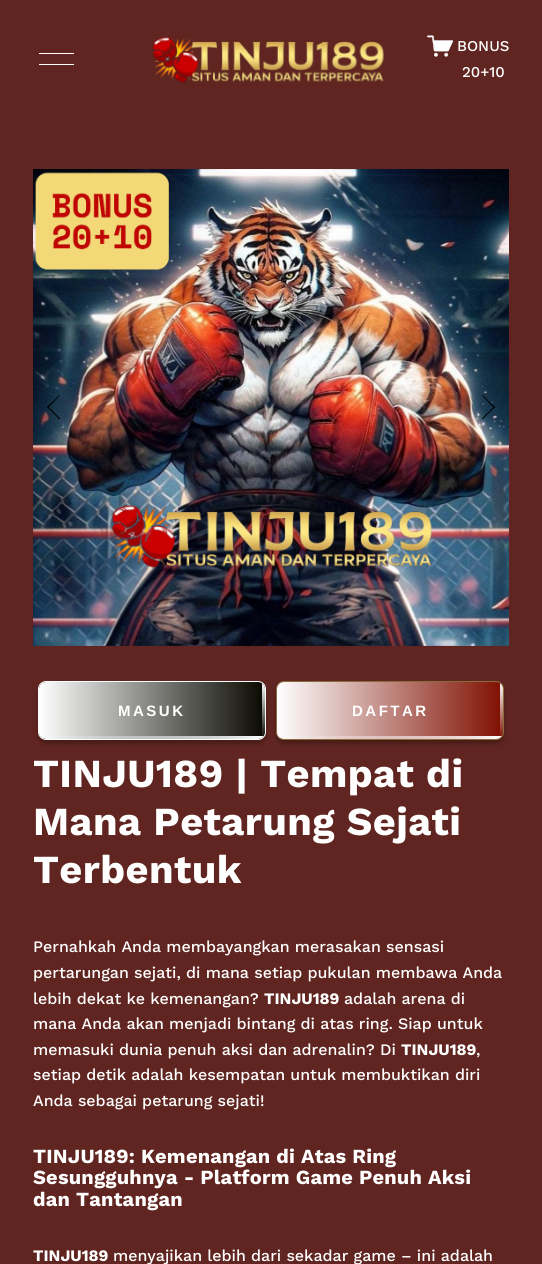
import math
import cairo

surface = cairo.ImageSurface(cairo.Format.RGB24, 542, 1264)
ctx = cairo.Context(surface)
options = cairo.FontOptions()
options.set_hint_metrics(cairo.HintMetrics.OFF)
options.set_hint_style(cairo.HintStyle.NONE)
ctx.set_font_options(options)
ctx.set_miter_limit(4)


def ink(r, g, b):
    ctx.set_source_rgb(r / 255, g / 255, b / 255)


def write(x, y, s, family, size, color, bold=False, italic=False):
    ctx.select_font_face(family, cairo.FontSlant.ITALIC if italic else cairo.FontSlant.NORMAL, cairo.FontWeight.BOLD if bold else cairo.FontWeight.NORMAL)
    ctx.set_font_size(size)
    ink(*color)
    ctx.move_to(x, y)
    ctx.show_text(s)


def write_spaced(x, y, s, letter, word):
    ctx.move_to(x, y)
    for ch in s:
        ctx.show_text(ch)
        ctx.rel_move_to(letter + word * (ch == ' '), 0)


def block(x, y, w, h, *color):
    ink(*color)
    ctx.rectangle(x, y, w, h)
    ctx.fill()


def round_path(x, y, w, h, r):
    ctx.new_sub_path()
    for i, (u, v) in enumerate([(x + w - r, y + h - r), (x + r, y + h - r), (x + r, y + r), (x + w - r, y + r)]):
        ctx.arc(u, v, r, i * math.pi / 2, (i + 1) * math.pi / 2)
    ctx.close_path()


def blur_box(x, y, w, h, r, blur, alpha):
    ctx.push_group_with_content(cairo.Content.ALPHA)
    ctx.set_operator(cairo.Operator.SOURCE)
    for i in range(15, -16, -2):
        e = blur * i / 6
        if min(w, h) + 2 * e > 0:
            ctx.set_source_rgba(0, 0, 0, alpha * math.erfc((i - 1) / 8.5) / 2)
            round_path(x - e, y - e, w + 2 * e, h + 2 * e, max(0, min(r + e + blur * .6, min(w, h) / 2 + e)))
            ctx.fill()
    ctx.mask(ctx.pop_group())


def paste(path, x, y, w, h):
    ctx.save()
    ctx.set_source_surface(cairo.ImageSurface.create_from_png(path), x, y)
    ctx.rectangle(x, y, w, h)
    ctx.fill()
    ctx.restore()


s1 = dict(family="Work Sans Medium", size=15, color=(255, 255, 255))
s2 = dict(family="Work Sans Medium", size=16, color=(255, 255, 255))
s3 = dict(family="Work Sans", size=16, color=(255, 255, 255), bold=True)

ink(96, 37, 32)
ctx.paint()
block(39, 53, 35, 1, 255, 255, 255)
block(39, 64, 35, 1, 255, 255, 255)
paste("pic1.png", 152, 37, 233, 46)
paste("pic2.png", 427, 35, 26, 22)
write(457, 51, "BONUS", **s1)
write(462, 77, "20+10", **s1)
paste("pic3.png", 33, 169, 476, 477)
ink(0, 0, 0)
ctx.new_path()
ctx.move_to(59.5, 419.5)
ctx.line_to(47, 407)
ctx.line_to(48, 406.5)
ctx.line_to(60, 418.5)
ctx.close_path()
ctx.fill()
ctx.new_path()
ctx.move_to(48, 408)
ctx.line_to(47, 407)
ctx.line_to(59.5, 395)
ctx.line_to(60, 395.5)
ctx.close_path()
ctx.fill()
ctx.new_path()
ctx.move_to(482.5, 395)
ctx.line_to(495, 407)
ctx.line_to(494, 408)
ctx.line_to(482, 395.5)
ctx.close_path()
ctx.fill()
ctx.new_path()
ctx.move_to(494, 406.5)
ctx.line_to(495, 407)
ctx.line_to(482.5, 419.5)
ctx.line_to(482, 418.5)
ctx.close_path()
ctx.fill()
ink(0, 0, 0)
blur_box(38, 685, 228, 59, 8, 2, 0.25)
ink(8, 8, 0)
round_path(38.5, 681.5, 227, 58, 7.5)
ctx.fill_preserve()
ink(255, 255, 255)
ctx.set_line_width(1)
ctx.stroke()
ctx.select_font_face("Liberation Sans", cairo.FontSlant.NORMAL, cairo.FontWeight.BOLD)
write_spaced(118, 716, "MASUK", 2.5, 0)
gradient = cairo.LinearGradient(265, 712, 39, 712)
gradient.add_color_stop_rgba(0, 1, 1, 1, 0)
gradient.add_color_stop_rgba(1, 1, 1, 1, 1)
ctx.set_source(gradient)
round_path(39, 682, 226, 57, 7)
ctx.fill()
ctx.save()
round_path(39, 682, 226, 57, 7)
ctx.clip()
gradient = cairo.LinearGradient(264, 739, 264, 682)
gradient.add_color_stop_rgba(0, 1, 1, 1, 0)
gradient.add_color_stop_rgba(1, 1, 1, 1, 1)
ctx.set_source(gradient)
ctx.rectangle(262, 682, 3, 57)
ctx.fill()
gradient = cairo.LinearGradient(39, 738, 265, 738)
gradient.add_color_stop_rgba(0, 1, 1, 1, 0)
gradient.add_color_stop_rgba(1, 1, 1, 1, 1)
ctx.set_source(gradient)
ctx.rectangle(39, 736, 226, 3)
ctx.fill()
gradient = cairo.LinearGradient(41, 682, 41, 739)
gradient.add_color_stop_rgba(0, 1, 1, 1, 0)
gradient.add_color_stop_rgba(1, 1, 1, 1, 1)
ctx.set_source(gradient)
ctx.rectangle(39, 682, 3, 57)
ctx.fill()
ctx.restore()
ink(0, 0, 0)
blur_box(276, 685, 228, 59, 8, 2, 0.25)
ink(127, 15, 0)
round_path(276.5, 681.5, 227, 58, 7.5)
ctx.fill_preserve()
ink(138, 109, 59)
ctx.stroke()
ink(255, 255, 255)
write_spaced(352, 716, "DAFTAR", 2.5, 0)
gradient = cairo.LinearGradient(503, 712, 277, 712)
gradient.add_color_stop_rgba(0, 1, 1, 1, 0)
gradient.add_color_stop_rgba(1, 1, 1, 1, 1)
ctx.set_source(gradient)
round_path(277, 682, 226, 57, 7)
ctx.fill()
ctx.save()
round_path(277, 682, 226, 57, 7)
ctx.clip()
gradient = cairo.LinearGradient(502, 739, 502, 682)
gradient.add_color_stop_rgba(0, 1, 1, 1, 0)
gradient.add_color_stop_rgba(1, 1, 1, 1, 1)
ctx.set_source(gradient)
ctx.rectangle(500, 682, 3, 57)
ctx.fill()
gradient = cairo.LinearGradient(277, 738, 503, 738)
gradient.add_color_stop_rgba(0, 1, 1, 1, 0)
gradient.add_color_stop_rgba(1, 1, 1, 1, 1)
ctx.set_source(gradient)
ctx.rectangle(277, 736, 226, 3)
ctx.fill()
gradient = cairo.LinearGradient(279, 682, 279, 739)
gradient.add_color_stop_rgba(0, 1, 1, 1, 0)
gradient.add_color_stop_rgba(1, 1, 1, 1, 1)
ctx.set_source(gradient)
ctx.rectangle(277, 682, 3, 57)
ctx.fill()
ctx.restore()
ctx.select_font_face("Work Sans", cairo.FontSlant.NORMAL, cairo.FontWeight.BOLD)
ctx.set_font_size(39.75)
ink(255, 255, 255)
write_spaced(33, 787, "TINJU189 | Tempat di", 0.4, 0)
write_spaced(33, 835, "Mana Petarung Sejati", 0.4, 0)
write_spaced(33, 883, "Terbentuk", 0.4, 0)
write(33, 952, "Pernahkah Anda membayangkan merasakan sensasi", **s2)
write(33, 978, "pertarungan sejati, di mana setiap pukulan membawa Anda", **s2)
write(33, 1004, "lebih dekat ke kemenangan?", **s2)
write(264, 1004, "TINJU189", **s3)
write(344, 1004, "adalah arena di", **s2)
write(33, 1029, "mana Anda akan menjadi bintang di atas ring. Siap untuk", **s2)
write(33, 1055, "memasuki dunia penuh aksi dan adrenalin? Di", **s2)
write(401, 1055, "TINJU189", **s3)
write(476, 1055, ",", **s2)
write(33, 1080, "setiap detik adalah kesempatan untuk membuktikan diri", **s2)
write(33, 1106, "Anda sebagai petarung sejati!", **s2)
ctx.select_font_face("Work Sans", cairo.FontSlant.NORMAL, cairo.FontWeight.BOLD)
ctx.set_font_size(20)
write_spaced(33, 1163, "TINJU189: Kemenangan di Atas Ring", 0.2, 0)
write_spaced(33, 1184, "Sesungguhnya - Platform Game Penuh Aksi", 0.2, 0)
write_spaced(33, 1206, "dan Tantangan", 0.2, 0)
write(33, 1261, "TINJU189", **s3)
write(113, 1261, "menyajikan lebih dari sekadar game – ini adalah", **s2)
surface.write_to_png("screenshot.png")
